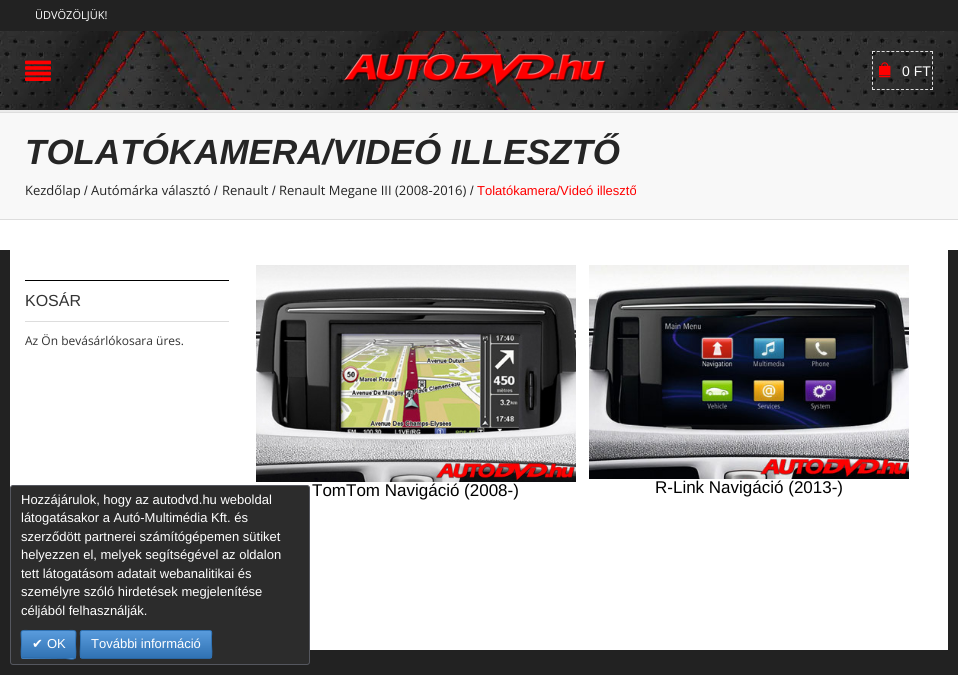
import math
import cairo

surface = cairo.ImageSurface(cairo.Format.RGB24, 958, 675)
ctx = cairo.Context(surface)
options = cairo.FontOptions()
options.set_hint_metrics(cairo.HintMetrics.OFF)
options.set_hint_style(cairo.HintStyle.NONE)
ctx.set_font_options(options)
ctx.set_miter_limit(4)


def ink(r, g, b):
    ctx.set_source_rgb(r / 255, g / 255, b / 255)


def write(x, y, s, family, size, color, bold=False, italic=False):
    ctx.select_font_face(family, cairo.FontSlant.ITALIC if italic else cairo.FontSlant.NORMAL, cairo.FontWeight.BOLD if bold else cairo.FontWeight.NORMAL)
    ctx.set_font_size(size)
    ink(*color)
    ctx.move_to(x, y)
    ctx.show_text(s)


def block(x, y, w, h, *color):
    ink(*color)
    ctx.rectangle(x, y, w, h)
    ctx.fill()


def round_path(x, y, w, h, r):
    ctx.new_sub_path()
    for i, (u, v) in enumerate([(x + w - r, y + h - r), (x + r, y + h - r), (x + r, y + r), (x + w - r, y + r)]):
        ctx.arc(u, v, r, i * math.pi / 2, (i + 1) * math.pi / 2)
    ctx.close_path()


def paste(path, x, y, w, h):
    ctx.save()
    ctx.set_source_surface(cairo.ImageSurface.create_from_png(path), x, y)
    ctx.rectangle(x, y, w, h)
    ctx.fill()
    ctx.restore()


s1 = dict(family="Open Sans", size=11, color=(255, 255, 255))
s2 = dict(family="Liberation Sans", size=14, color=(255, 255, 255))
s3 = dict(family="Liberation Sans", size=35, color=(37, 37, 37), bold=True, italic=True)
s4 = dict(family="Open Sans", size=13, color=(37, 37, 37))
s5 = dict(family="Liberation Sans", size=13, color=(37, 37, 37))
s6 = dict(family="Liberation Sans", size=13, color=(255, 0, 0))
s7 = dict(family="Liberation Sans", size=16, color=(51, 51, 51))
s8 = dict(family="Open Sans", size=12, color=(51, 51, 51))
s9 = dict(family="Liberation Sans", size=17, color=(0, 0, 0))
s10 = dict(family="Liberation Sans", size=13, color=(255, 255, 255))
s11 = dict(family="DejaVu Sans", size=13, color=(255, 255, 255))

ink(255, 255, 255)
ctx.paint()
block(0, 0, 958, 31, 34, 34, 34)
write(35, 19, "ÜDVÖZÖLJÜK!", **s1)
paste("pic1.png", 0, 31, 958, 79)
paste("pic2.png", 25, 60, 26, 21)
paste("pic3.png", 344, 54, 262, 33)
ctx.new_path()
ctx.move_to(872, 51.5)
ctx.line_to(933, 51.5)
ink(223, 223, 223)
ctx.set_line_width(1)
ctx.set_dash([3, 1.83])
ctx.stroke()
ctx.new_path()
ctx.move_to(932.5, 51)
ctx.line_to(932.5, 90)
ctx.set_dash([3, 2.14])
ctx.stroke()
ctx.new_path()
ctx.move_to(872, 89.5)
ctx.line_to(933, 89.5)
ctx.set_dash([3, 1.83])
ctx.stroke()
ctx.new_path()
ctx.move_to(872.5, 51)
ctx.line_to(872.5, 90)
ctx.set_dash([3, 2.14])
ctx.stroke()
paste("pic4.png", 879, 62, 12, 16)
write(902, 76, "0 FT", **s2)
block(0, 110, 958, 2, 235, 235, 235)
block(0, 113, 958, 106, 248, 248, 248)
block(0, 112, 958, 1, 221, 221, 221)
block(0, 219, 958, 1, 221, 221, 221)
write(25, 164, "TOLATÓKAMERA/VIDEÓ ILLESZTŐ", **s3)
write(25, 195, "Kezdőlap", **s4)
write(84, 195, "/", **s5)
write(91, 195, "Autómárka választó", **s4)
write(214, 195, "/", **s5)
write(222, 195, "Renault", **s4)
write(272, 195, "/", **s5)
write(279, 195, "Renault Megane III (2008-2016)", **s4)
write(470, 195, "/", **s5)
write(477, 195, "Tolatókamera/Videó illesztő", **s6)
block(0, 250, 958, 425, 34, 34, 34)
block(10, 250, 938, 400, 255, 255, 255)
block(25, 280, 204, 1, 0, 0, 0)
block(25, 321, 204, 1, 221, 221, 221)
write(25, 306, "KOSÁR", **s7)
write(25, 345, "Az Ön bevásárlókosara üres.", **s8)
paste("pic5.png", 256, 265, 320, 217)
write(312, 496, "TomTom Navigáció (2008-)", **s9)
paste("pic6.png", 589, 265, 320, 214)
write(655, 493, "R-Link Navigáció (2013-)", **s9)
ink(44, 44, 44)
round_path(10.5, 485.5, 299, 179, 2.5)
ctx.fill_preserve()
ink(85, 87, 95)
ctx.set_dash([])
ctx.stroke()
write(21, 504, "Hozzájárulok, hogy az autodvd.hu weboldal", **s10)
write(21, 522, "látogatásakor a Autó-Multimédia Kft. és", **s10)
write(21, 541, "szerződött partnerei számítógépemen sütiket", **s10)
write(21, 559, "helyezzen el, melyek segítségével az oldalon", **s10)
write(21, 578, "tett látogatásom adatait webanalitikai és", **s10)
write(21, 596, "személyre szóló hirdetések megjelenítése", **s10)
write(21, 615, "céljából felhasználják.", **s10)
ctx.save()
round_path(21, 630, 55, 29, 2)
ctx.clip()
gradient = cairo.LinearGradient(49, 631, 49, 658)
gradient.add_color_stop_rgba(0, 0.349, 0.608, 0.863, 1)
gradient.add_color_stop_rgba(1, 0.188, 0.447, 0.702, 1)
ctx.set_source(gradient)
ctx.rectangle(21, 631, 55, 27)
ctx.fill()
gradient = cairo.LinearGradient(49, 658, 49, 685)
gradient.add_color_stop_rgba(0, 0.349, 0.608, 0.863, 1)
gradient.add_color_stop_rgba(1, 0.188, 0.447, 0.702, 1)
ctx.set_source(gradient)
ctx.rectangle(21, 658, 55, 1)
ctx.fill()
ctx.restore()
ctx.new_path()
ctx.move_to(75, 658)
ctx.curve_to(73, 660.5, 68.5, 658.5, 65.5, 658.5)
ctx.line_to(22, 658)
ink(42, 101, 160)
ctx.stroke()
ctx.new_path()
ctx.move_to(22, 658)
ctx.curve_to(20.5, 656.5, 21.5, 646.5, 21.5, 644.5)
ctx.curve_to(21.5, 628.5, 18, 630.5, 31.5, 630.5)
ctx.line_to(65.5, 630.5)
ctx.curve_to(79, 630.5, 75.5, 628.5, 75.5, 644.5)
ctx.curve_to(75.5, 646.5, 76.5, 656.5, 75, 658)
ink(48, 114, 179)
ctx.stroke()
write(32, 648, "✔", **s11)
write(47, 648, "OK", **s10)
ctx.save()
round_path(80, 630, 132, 29, 2)
ctx.clip()
gradient = cairo.LinearGradient(146, 631, 146, 658)
gradient.add_color_stop_rgba(0, 0.349, 0.608, 0.863, 1)
gradient.add_color_stop_rgba(1, 0.188, 0.447, 0.702, 1)
ctx.set_source(gradient)
ctx.rectangle(80, 631, 132, 27)
ctx.fill()
ctx.restore()
ctx.new_path()
ctx.move_to(211, 658)
ctx.line_to(210, 658.5)
ctx.line_to(82, 658.5)
ctx.line_to(81, 658)
ink(42, 101, 160)
ctx.stroke()
ctx.new_path()
ctx.move_to(81, 658)
ctx.curve_to(79.5, 656.5, 80.5, 646.5, 80.5, 644.5)
ctx.line_to(80.5, 636)
ctx.curve_to(80.5, 635.5, 79.5, 630.5, 82, 630.5)
ctx.line_to(210, 630.5)
ctx.curve_to(212.5, 630.5, 211.5, 635.5, 211.5, 636)
ctx.line_to(211.5, 644.5)
ctx.curve_to(211.5, 646.5, 212.5, 656.5, 211, 658)
ink(48, 114, 179)
ctx.stroke()
write(91, 648, "További információ", **s10)
surface.write_to_png("screenshot.png")
